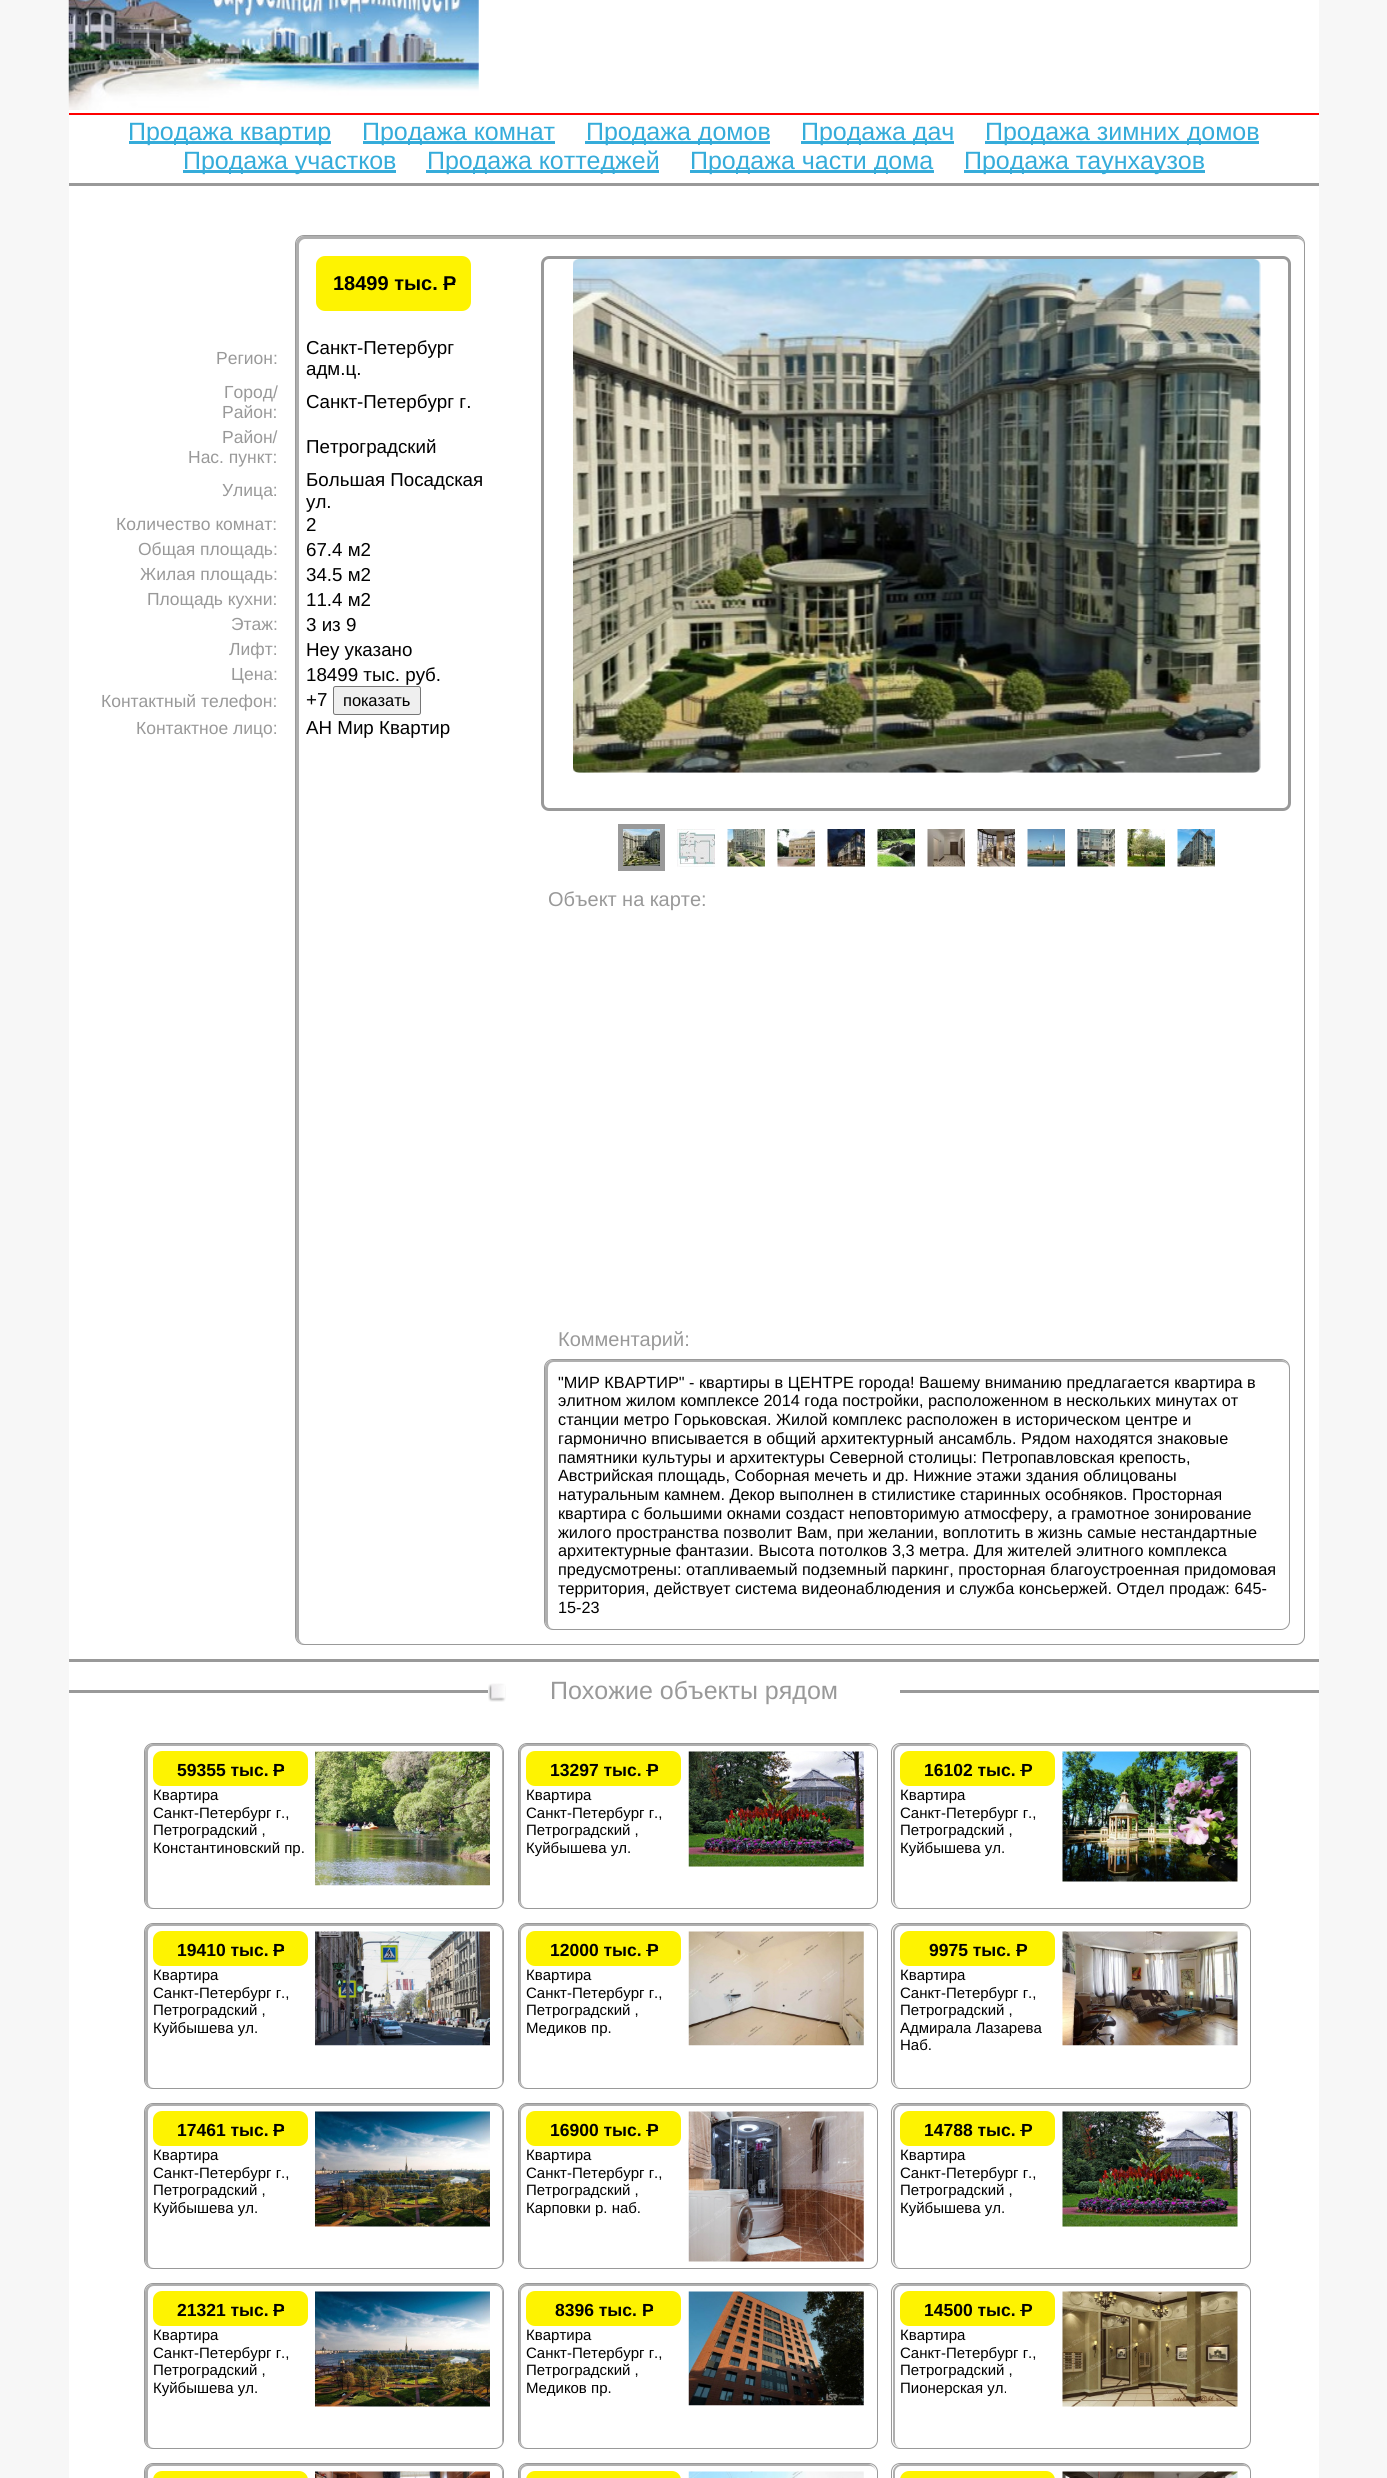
import math
import cairo

surface = cairo.ImageSurface(cairo.Format.RGB24, 1387, 2478)
ctx = cairo.Context(surface)
options = cairo.FontOptions()
options.set_hint_metrics(cairo.HintMetrics.OFF)
options.set_hint_style(cairo.HintStyle.NONE)
ctx.set_font_options(options)
ctx.set_miter_limit(4)


def ink(r, g, b):
    ctx.set_source_rgb(r / 255, g / 255, b / 255)


def write(x, y, s, family, size, color, bold=False, italic=False):
    ctx.select_font_face(family, cairo.FontSlant.ITALIC if italic else cairo.FontSlant.NORMAL, cairo.FontWeight.BOLD if bold else cairo.FontWeight.NORMAL)
    ctx.set_font_size(size)
    ink(*color)
    ctx.move_to(x, y)
    ctx.show_text(s)


def write_spaced(x, y, s, letter, word):
    ctx.move_to(x, y)
    for ch in s:
        ctx.show_text(ch)
        ctx.rel_move_to(letter + word * (ch == ' '), 0)


def block(x, y, w, h, *color):
    ink(*color)
    ctx.rectangle(x, y, w, h)
    ctx.fill()


def round_path(x, y, w, h, r):
    ctx.new_sub_path()
    for i, (u, v) in enumerate([(x + w - r, y + h - r), (x + r, y + h - r), (x + r, y + r), (x + w - r, y + r)]):
        ctx.arc(u, v, r, i * math.pi / 2, (i + 1) * math.pi / 2)
    ctx.close_path()


def paste(path, x, y, w, h):
    ctx.save()
    ctx.set_source_surface(cairo.ImageSurface.create_from_png(path), x, y)
    ctx.rectangle(x, y, w, h)
    ctx.fill()
    ctx.restore()


s1 = dict(family="Liberation Sans", size=25, color=(53, 172, 218))
s2 = dict(family="Liberation Sans", size=20, color=(0, 0, 0), bold=True)
s3 = dict(family="Liberation Sans", size=17.5, color=(153, 153, 153))
s4 = dict(family="Liberation Sans", size=18.75, color=(0, 0, 0))
s5 = dict(family="Liberation Sans", size=16.5, color=(0, 0, 0))
s6 = dict(family="Liberation Serif", size=8, color=(32, 31, 27))
s7 = dict(family="Liberation Serif", size=8, color=(174, 172, 173))
s8 = dict(family="Liberation Serif", size=8, color=(99, 103, 96))
s9 = dict(family="Liberation Serif", size=8, color=(136, 128, 117))
s10 = dict(family="Liberation Serif", size=8, color=(104, 123, 75))
s11 = dict(family="Liberation Serif", size=8, color=(122, 116, 106))
s12 = dict(family="Liberation Serif", size=8, color=(130, 125, 120))
s13 = dict(family="Liberation Serif", size=8, color=(100, 136, 159))
s14 = dict(family="Liberation Serif", size=8, color=(92, 98, 95))
s15 = dict(family="Liberation Serif", size=8, color=(114, 113, 75))
s16 = dict(family="Liberation Sans", size=20, color=(153, 153, 153))
s17 = dict(family="Liberation Sans", size=16.25, color=(0, 0, 0))
s18 = dict(family="Liberation Sans", size=25, color=(153, 153, 153))
s19 = dict(family="Liberation Sans", size=17.5, color=(0, 0, 0), bold=True)
s20 = dict(family="Liberation Sans", size=15, color=(0, 0, 0))

ink(247, 247, 247)
ctx.paint()
block(69, 0, 1250, 113, 255, 255, 255)
block(69, 113, 1250, 2, 255, 0, 0)
paste("pic1.png", 68, 0, 411, 110)
block(69, 115, 1250, 2363, 255, 255, 255)
block(129, 141, 202, 3, 53, 172, 218)
write(128, 140, "Продажа квартир", **s1)
block(363, 141, 192, 3, 53, 172, 218)
write(362, 140, "Продажа комнат", **s1)
block(585, 141, 185, 3, 53, 172, 218)
write(586, 140, "Продажа домов", **s1)
block(801, 141, 153, 3, 53, 172, 218)
write(801, 140, "Продажа дач", **s1)
block(985, 141, 274, 3, 53, 172, 218)
write(985, 140, "Продажа зимних домов", **s1)
block(183, 170, 213, 3, 53, 172, 218)
write(183, 169, "Продажа участков", **s1)
block(426, 170, 233, 3, 53, 172, 218)
write(427, 169, "Продажа коттеджей", **s1)
block(690, 170, 244, 3, 53, 172, 218)
write(690, 169, "Продажа части дома", **s1)
block(964, 170, 241, 3, 53, 172, 218)
write(964, 169, "Продажа таунхаузов", **s1)
block(69, 183, 1250, 3, 153, 153, 153)
block(69, 1659, 1250, 3, 153, 153, 153)
ink(175, 175, 175)
ctx.new_path()
ctx.move_to(305, 239)
ctx.line_to(1298, 239)
ctx.curve_to(1301, 239, 1304, 242, 1304, 245)
ctx.line_to(1304, 244)
ctx.curve_to(1304, 240, 1300, 236, 1296, 236)
ctx.line_to(304, 236)
ctx.curve_to(300, 236, 296, 240, 296, 244)
ctx.line_to(296, 1636)
ctx.curve_to(296, 1640, 300, 1644, 304, 1644)
ctx.line_to(305, 1644)
ctx.curve_to(302, 1644, 299, 1641, 299, 1638)
ctx.line_to(299, 245)
ctx.curve_to(299, 242, 302, 239, 305, 239)
ctx.close_path()
ctx.fill()
round_path(295.5, 235.5, 1009, 1409, 8.5)
ink(153, 153, 153)
ctx.set_line_width(1)
ctx.stroke()
ink(254, 243, 1)
round_path(316, 256, 155, 55, 9)
ctx.fill()
write(333, 290, "18499 тыс.", **s2)
write_spaced(443, 290, "P", -1, 0)
block(443, 284, 12, 1, 0, 0, 0)
write(216, 364, "Регион:", **s3)
write(306, 354, "Санкт-Петербург", **s4)
write(306, 375, "адм.ц.", **s4)
write(224, 398, "Город/", **s3)
write(222, 418, "Район:", **s3)
write(306, 408, "Санкт-Петербург г.", **s4)
write(222, 443, "Район/", **s3)
write(188, 463, "Нас. пункт:", **s3)
write(306, 453, "Петроградский", **s4)
write(222, 496, "Улица:", **s3)
write(306, 486, "Большая Посадская", **s4)
write(306, 508, "ул.", **s4)
write(116, 530, "Количество комнат:", **s3)
write(306, 531, "2", **s4)
write(138, 555, "Общая площадь:", **s3)
write(306, 556, "67.4 м2", **s4)
write(140, 580, "Жилая площадь:", **s3)
write(306, 581, "34.5 м2", **s4)
write(147, 605, "Площадь кухни:", **s3)
write(306, 606, "11.4 м2", **s4)
write(231, 630, "Этаж:", **s3)
write(306, 631, "3 из 9", **s4)
write(229, 655, "Лифт:", **s3)
write(306, 656, "Неу указано", **s4)
write(231, 680, "Цена:", **s3)
write(306, 681, "18499 тыс. руб.", **s4)
write(101, 707, "Контактный телефон:", **s3)
write(306, 706, "+7", **s4)
ink(239, 239, 239)
round_path(333.5, 686.5, 87, 28, 2)
ctx.fill_preserve()
ink(118, 118, 118)
ctx.stroke()
write(343, 706, "показать", **s5)
write(136, 734, "Контактное лицо:", **s3)
write(306, 734, "АН Мир Квартир", **s4)
round_path(542.5, 257.5, 747, 552, 6.5)
ink(153, 153, 153)
ctx.set_line_width(3)
ctx.stroke()
paste("pic2.png", 573, 259, 688, 514)
paste("pic3.png", 623, 829, 37, 37)
ctx.rectangle(620.5, 826.5, 42, 42)
ctx.set_line_width(5)
ctx.stroke()
write(634, 844, "•", **s6)
paste("pic4.png", 677, 829, 38, 38)
write(689, 844, "•", **s7)
paste("pic5.png", 727, 829, 38, 38)
write(739, 844, "•", **s8)
paste("pic6.png", 777, 829, 38, 38)
write(789, 844, "•", **s9)
paste("pic7.png", 827, 829, 38, 38)
paste("pic8.png", 877, 829, 38, 38)
write(889, 844, "•", **s10)
paste("pic9.png", 927, 829, 38, 38)
write(939, 844, "•", **s11)
paste("pic10.png", 977, 829, 38, 38)
write(989, 844, "•", **s12)
paste("pic11.png", 1027, 829, 38, 38)
write(1039, 844, "•", **s13)
paste("pic12.png", 1077, 829, 38, 38)
write(1089, 844, "•", **s14)
paste("pic13.png", 1127, 829, 38, 38)
write(1139, 844, "•", **s15)
paste("pic14.png", 1177, 829, 38, 38)
write(548, 906, "Объект на карте:", **s16)
ink(175, 175, 175)
ctx.new_path()
ctx.move_to(554, 1362)
ctx.line_to(1282, 1362)
ctx.curve_to(1286, 1362, 1289, 1365, 1289, 1369)
ctx.line_to(1289, 1368)
ctx.curve_to(1289, 1364, 1285, 1360, 1281, 1360)
ctx.line_to(553, 1360)
ctx.curve_to(549, 1360, 545, 1364, 545, 1368)
ctx.line_to(545, 1621)
ctx.curve_to(545, 1625, 549, 1629, 553, 1629)
ctx.line_to(554, 1629)
ctx.curve_to(550, 1629, 548, 1626, 548, 1622)
ctx.line_to(548, 1369)
ctx.curve_to(548, 1365, 550, 1362, 554, 1362)
ctx.close_path()
ctx.fill()
round_path(544.5, 1359.5, 745, 270, 8.5)
ink(153, 153, 153)
ctx.set_line_width(1)
ctx.stroke()
write(558, 1346, "Комментарий:", **s16)
write(558, 1388, "\"МИР КВАРТИР\" - квартиры в ЦЕНТРЕ города! Вашему вниманию предлагается квартира в", **s17)
write(558, 1406, "элитном жилом комплексе 2014 года постройки, расположенном в нескольких минутах от", **s17)
write(558, 1425, "станции метро Горьковская. Жилой комплекс расположен в историческом центре и", **s17)
write(558, 1444, "гармонично вписывается в общий архитектурный ансамбль. Рядом находятся знаковые", **s17)
write(558, 1463, "памятники культуры и архитектуры Северной столицы: Петропавловская крепость,", **s17)
write(558, 1481, "Австрийская площадь, Соборная мечеть и др. Нижние этажи здания облицованы", **s17)
write(558, 1500, "натуральным камнем. Декор выполнен в стилистике старинных особняков. Просторная", **s17)
write(558, 1519, "квартира с большими окнами создаст неповторимую атмосферу, а грамотное зонирование", **s17)
write(558, 1538, "жилого пространства позволит Вам, при желании, воплотить в жизнь самые нестандартные", **s17)
write(558, 1556, "архитектурные фантазии. Высота потолков 3,3 метра. Для жителей элитного комплекса", **s17)
write(558, 1575, "предусмотрены: отапливаемый подземный паркинг, просторная благоустроенная придомовая", **s17)
write(558, 1594, "территория, действует система видеонаблюдения и служба консьержей. Отдел продаж: 645-", **s17)
write(558, 1613, "15-23", **s17)
block(69, 1690, 1250, 3, 153, 153, 153)
block(488, 1690, 412, 3, 255, 255, 255)
paste("pic15.png", 488, 1683, 18, 19)
write(550, 1699, "Похожие объекты рядом", **s18)
ink(175, 175, 175)
ctx.new_path()
ctx.move_to(154, 1746)
ctx.line_to(496, 1746)
ctx.curve_to(500, 1746, 502, 1749, 502, 1752)
ctx.line_to(502, 1901)
ctx.curve_to(502, 1903, 502, 1904, 501, 1905)
ctx.curve_to(502, 1904, 503, 1902, 503, 1900)
ctx.line_to(503, 1752)
ctx.curve_to(503, 1748, 499, 1744, 495, 1744)
ctx.line_to(153, 1744)
ctx.curve_to(149, 1744, 145, 1748, 145, 1752)
ctx.line_to(145, 1900)
ctx.curve_to(145, 1904, 149, 1908, 153, 1908)
ctx.line_to(154, 1908)
ctx.curve_to(150, 1908, 148, 1905, 148, 1901)
ctx.line_to(148, 1752)
ctx.curve_to(148, 1749, 150, 1746, 154, 1746)
ctx.close_path()
ctx.fill()
round_path(144.5, 1743.5, 359, 165, 8.5)
ink(153, 153, 153)
ctx.stroke()
ink(254, 243, 1)
round_path(153, 1751, 155, 35, 9)
ctx.fill()
write(177, 1776, "59355 тыс.", **s19)
write_spaced(273, 1776, "Р", -1, 0)
block(273, 1770, 11, 1, 0, 0, 0)
paste("pic16.png", 315, 1751, 175, 135)
write(153, 1800, "Квартира", **s20)
write(153, 1818, "Санкт-Петербург г.,", **s20)
write(153, 1835, "Петроградский ,", **s20)
write(153, 1853, "Константиновский пр.", **s20)
ink(175, 175, 175)
ctx.new_path()
ctx.move_to(528, 1746)
ctx.line_to(870, 1746)
ctx.curve_to(873, 1746, 876, 1749, 876, 1752)
ctx.curve_to(876, 1748, 872, 1744, 868, 1744)
ctx.line_to(527, 1744)
ctx.curve_to(523, 1744, 519, 1748, 519, 1752)
ctx.line_to(519, 1900)
ctx.curve_to(519, 1904, 523, 1908, 527, 1908)
ctx.line_to(528, 1908)
ctx.curve_to(524, 1908, 521, 1905, 521, 1901)
ctx.line_to(521, 1752)
ctx.curve_to(521, 1749, 524, 1746, 528, 1746)
ctx.close_path()
ctx.fill()
round_path(518.5, 1743.5, 359, 165, 8.5)
ink(153, 153, 153)
ctx.stroke()
ink(254, 243, 1)
round_path(526, 1751, 155, 35, 9)
ctx.fill()
write(550, 1776, "13297 тыс.", **s19)
write_spaced(647, 1776, "Р", -1, 0)
block(646, 1770, 12, 1, 0, 0, 0)
paste("pic17.png", 688, 1751, 176, 116)
write(526, 1800, "Квартира", **s20)
write(526, 1818, "Санкт-Петербург г.,", **s20)
write(526, 1835, "Петроградский ,", **s20)
write(526, 1853, "Куйбышева ул.", **s20)
ink(175, 175, 175)
ctx.new_path()
ctx.move_to(901, 1746)
ctx.line_to(1244, 1746)
ctx.curve_to(1247, 1746, 1250, 1749, 1250, 1752)
ctx.curve_to(1250, 1748, 1246, 1744, 1242, 1744)
ctx.line_to(901, 1744)
ctx.curve_to(897, 1744, 893, 1748, 893, 1752)
ctx.line_to(893, 1900)
ctx.curve_to(893, 1904, 897, 1908, 901, 1908)
ctx.curve_to(898, 1908, 895, 1905, 895, 1901)
ctx.line_to(895, 1752)
ctx.curve_to(895, 1749, 898, 1746, 901, 1746)
ctx.close_path()
ctx.fill()
round_path(891.5, 1743.5, 359, 165, 8.5)
ink(153, 153, 153)
ctx.stroke()
ink(254, 243, 1)
round_path(900, 1751, 155, 35, 9)
ctx.fill()
write(924, 1776, "16102 тыс.", **s19)
write_spaced(1021, 1776, "Р", -1, 0)
block(1020, 1770, 11, 1, 0, 0, 0)
paste("pic18.png", 1062, 1751, 176, 131)
write(900, 1800, "Квартира", **s20)
write(900, 1818, "Санкт-Петербург г.,", **s20)
write(900, 1835, "Петроградский ,", **s20)
write(900, 1853, "Куйбышева ул.", **s20)
ink(175, 175, 175)
ctx.new_path()
ctx.move_to(154, 1926)
ctx.line_to(496, 1926)
ctx.curve_to(500, 1926, 502, 1929, 502, 1932)
ctx.line_to(502, 2081)
ctx.curve_to(502, 2083, 502, 2084, 501, 2085)
ctx.curve_to(502, 2084, 503, 2082, 503, 2080)
ctx.line_to(503, 1932)
ctx.curve_to(503, 1928, 499, 1924, 495, 1924)
ctx.line_to(153, 1924)
ctx.curve_to(149, 1924, 145, 1928, 145, 1932)
ctx.line_to(145, 2080)
ctx.curve_to(145, 2084, 149, 2088, 153, 2088)
ctx.line_to(154, 2088)
ctx.curve_to(150, 2088, 148, 2085, 148, 2081)
ctx.line_to(148, 1932)
ctx.curve_to(148, 1929, 150, 1926, 154, 1926)
ctx.close_path()
ctx.fill()
round_path(144.5, 1923.5, 359, 165, 8.5)
ink(153, 153, 153)
ctx.stroke()
ink(254, 243, 1)
round_path(153, 1931, 155, 35, 9)
ctx.fill()
write(177, 1956, "19410 тыс.", **s19)
write_spaced(273, 1956, "Р", -1, 0)
block(273, 1950, 11, 1, 0, 0, 0)
paste("pic19.png", 315, 1931, 175, 115)
write(153, 1980, "Квартира", **s20)
write(153, 1998, "Санкт-Петербург г.,", **s20)
write(153, 2015, "Петроградский ,", **s20)
write(153, 2033, "Куйбышева ул.", **s20)
ink(175, 175, 175)
ctx.new_path()
ctx.move_to(528, 1926)
ctx.line_to(870, 1926)
ctx.curve_to(873, 1926, 876, 1929, 876, 1932)
ctx.curve_to(876, 1928, 872, 1924, 868, 1924)
ctx.line_to(527, 1924)
ctx.curve_to(523, 1924, 519, 1928, 519, 1932)
ctx.line_to(519, 2080)
ctx.curve_to(519, 2084, 523, 2088, 527, 2088)
ctx.line_to(528, 2088)
ctx.curve_to(524, 2088, 521, 2085, 521, 2081)
ctx.line_to(521, 1932)
ctx.curve_to(521, 1929, 524, 1926, 528, 1926)
ctx.close_path()
ctx.fill()
round_path(518.5, 1923.5, 359, 165, 8.5)
ink(153, 153, 153)
ctx.stroke()
ink(254, 243, 1)
round_path(526, 1931, 155, 35, 9)
ctx.fill()
write(550, 1956, "12000 тыс.", **s19)
write_spaced(647, 1956, "Р", -1, 0)
block(646, 1950, 12, 1, 0, 0, 0)
paste("pic20.png", 688, 1931, 176, 115)
write(526, 1980, "Квартира", **s20)
write(526, 1998, "Санкт-Петербург г.,", **s20)
write(526, 2015, "Петроградский ,", **s20)
write(526, 2033, "Медиков пр.", **s20)
ink(175, 175, 175)
ctx.new_path()
ctx.move_to(901, 1926)
ctx.line_to(1244, 1926)
ctx.curve_to(1247, 1926, 1250, 1929, 1250, 1932)
ctx.curve_to(1250, 1928, 1246, 1924, 1242, 1924)
ctx.line_to(901, 1924)
ctx.curve_to(897, 1924, 893, 1928, 893, 1932)
ctx.line_to(893, 2080)
ctx.curve_to(893, 2084, 897, 2088, 901, 2088)
ctx.curve_to(898, 2088, 895, 2085, 895, 2081)
ctx.line_to(895, 1932)
ctx.curve_to(895, 1929, 898, 1926, 901, 1926)
ctx.close_path()
ctx.fill()
round_path(891.5, 1923.5, 359, 165, 8.5)
ink(153, 153, 153)
ctx.stroke()
ink(254, 243, 1)
round_path(900, 1931, 155, 35, 9)
ctx.fill()
write(929, 1956, "9975 тыс.", **s19)
write_spaced(1016, 1956, "Р", -1, 0)
block(1016, 1950, 10, 1, 0, 0, 0)
paste("pic21.png", 1062, 1931, 176, 115)
write(900, 1980, "Квартира", **s20)
write(900, 1998, "Санкт-Петербург г.,", **s20)
write(900, 2015, "Петроградский ,", **s20)
write(900, 2033, "Адмирала Лазарева", **s20)
write(900, 2050, "Наб.", **s20)
ink(175, 175, 175)
ctx.new_path()
ctx.move_to(154, 2106)
ctx.line_to(496, 2106)
ctx.curve_to(500, 2106, 502, 2109, 502, 2112)
ctx.line_to(502, 2261)
ctx.curve_to(502, 2263, 502, 2264, 501, 2265)
ctx.curve_to(502, 2264, 503, 2262, 503, 2260)
ctx.line_to(503, 2112)
ctx.curve_to(503, 2108, 499, 2104, 495, 2104)
ctx.line_to(153, 2104)
ctx.curve_to(149, 2104, 145, 2108, 145, 2112)
ctx.line_to(145, 2260)
ctx.curve_to(145, 2264, 149, 2268, 153, 2268)
ctx.line_to(154, 2268)
ctx.curve_to(150, 2268, 148, 2265, 148, 2261)
ctx.line_to(148, 2112)
ctx.curve_to(148, 2109, 150, 2106, 154, 2106)
ctx.close_path()
ctx.fill()
round_path(144.5, 2103.5, 359, 165, 8.5)
ink(153, 153, 153)
ctx.stroke()
ink(254, 243, 1)
round_path(153, 2111, 155, 35, 9)
ctx.fill()
write(177, 2136, "17461 тыс.", **s19)
write_spaced(273, 2136, "Р", -1, 0)
block(273, 2130, 11, 1, 0, 0, 0)
paste("pic22.png", 315, 2111, 175, 116)
write(153, 2160, "Квартира", **s20)
write(153, 2178, "Санкт-Петербург г.,", **s20)
write(153, 2195, "Петроградский ,", **s20)
write(153, 2213, "Куйбышева ул.", **s20)
ink(175, 175, 175)
ctx.new_path()
ctx.move_to(528, 2106)
ctx.line_to(870, 2106)
ctx.curve_to(873, 2106, 876, 2109, 876, 2112)
ctx.curve_to(876, 2108, 872, 2104, 868, 2104)
ctx.line_to(527, 2104)
ctx.curve_to(523, 2104, 519, 2108, 519, 2112)
ctx.line_to(519, 2260)
ctx.curve_to(519, 2264, 523, 2268, 527, 2268)
ctx.line_to(528, 2268)
ctx.curve_to(524, 2268, 521, 2265, 521, 2261)
ctx.line_to(521, 2112)
ctx.curve_to(521, 2109, 524, 2106, 528, 2106)
ctx.close_path()
ctx.fill()
round_path(518.5, 2103.5, 359, 165, 8.5)
ink(153, 153, 153)
ctx.stroke()
ink(254, 243, 1)
round_path(526, 2111, 155, 35, 9)
ctx.fill()
write(550, 2136, "16900 тыс.", **s19)
write_spaced(647, 2136, "Р", -1, 0)
block(646, 2130, 12, 1, 0, 0, 0)
paste("pic23.png", 688, 2111, 176, 151)
write(526, 2160, "Квартира", **s20)
write(526, 2178, "Санкт-Петербург г.,", **s20)
write(526, 2195, "Петроградский ,", **s20)
write(526, 2213, "Карповки р. наб.", **s20)
ink(175, 175, 175)
ctx.new_path()
ctx.move_to(901, 2106)
ctx.line_to(1244, 2106)
ctx.curve_to(1247, 2106, 1250, 2109, 1250, 2112)
ctx.curve_to(1250, 2108, 1246, 2104, 1242, 2104)
ctx.line_to(901, 2104)
ctx.curve_to(897, 2104, 893, 2108, 893, 2112)
ctx.line_to(893, 2260)
ctx.curve_to(893, 2264, 897, 2268, 901, 2268)
ctx.curve_to(898, 2268, 895, 2265, 895, 2261)
ctx.line_to(895, 2112)
ctx.curve_to(895, 2109, 898, 2106, 901, 2106)
ctx.close_path()
ctx.fill()
round_path(891.5, 2103.5, 359, 165, 8.5)
ink(153, 153, 153)
ctx.stroke()
ink(254, 243, 1)
round_path(900, 2111, 155, 35, 9)
ctx.fill()
write(924, 2136, "14788 тыс.", **s19)
write_spaced(1021, 2136, "Р", -1, 0)
block(1020, 2130, 11, 1, 0, 0, 0)
paste("pic24.png", 1062, 2111, 176, 116)
write(900, 2160, "Квартира", **s20)
write(900, 2178, "Санкт-Петербург г.,", **s20)
write(900, 2195, "Петроградский ,", **s20)
write(900, 2213, "Куйбышева ул.", **s20)
ink(175, 175, 175)
ctx.new_path()
ctx.move_to(154, 2286)
ctx.line_to(496, 2286)
ctx.curve_to(500, 2286, 502, 2289, 502, 2292)
ctx.line_to(502, 2441)
ctx.curve_to(502, 2443, 502, 2444, 501, 2445)
ctx.curve_to(502, 2444, 503, 2442, 503, 2440)
ctx.line_to(503, 2292)
ctx.curve_to(503, 2288, 499, 2284, 495, 2284)
ctx.line_to(153, 2284)
ctx.curve_to(149, 2284, 145, 2288, 145, 2292)
ctx.line_to(145, 2440)
ctx.curve_to(145, 2444, 149, 2448, 153, 2448)
ctx.line_to(154, 2448)
ctx.curve_to(150, 2448, 148, 2445, 148, 2441)
ctx.line_to(148, 2292)
ctx.curve_to(148, 2289, 150, 2286, 154, 2286)
ctx.close_path()
ctx.fill()
round_path(144.5, 2283.5, 359, 165, 8.5)
ink(153, 153, 153)
ctx.stroke()
ink(254, 243, 1)
round_path(153, 2291, 155, 35, 9)
ctx.fill()
write(177, 2316, "21321 тыс.", **s19)
write_spaced(273, 2316, "Р", -1, 0)
block(273, 2310, 11, 1, 0, 0, 0)
paste("pic22.png", 315, 2291, 175, 116)
write(153, 2340, "Квартира", **s20)
write(153, 2358, "Санкт-Петербург г.,", **s20)
write(153, 2375, "Петроградский ,", **s20)
write(153, 2393, "Куйбышева ул.", **s20)
ink(175, 175, 175)
ctx.new_path()
ctx.move_to(528, 2286)
ctx.line_to(870, 2286)
ctx.curve_to(873, 2286, 876, 2289, 876, 2292)
ctx.curve_to(876, 2288, 872, 2284, 868, 2284)
ctx.line_to(527, 2284)
ctx.curve_to(523, 2284, 519, 2288, 519, 2292)
ctx.line_to(519, 2440)
ctx.curve_to(519, 2444, 523, 2448, 527, 2448)
ctx.line_to(528, 2448)
ctx.curve_to(524, 2448, 521, 2445, 521, 2441)
ctx.line_to(521, 2292)
ctx.curve_to(521, 2289, 524, 2286, 528, 2286)
ctx.close_path()
ctx.fill()
round_path(518.5, 2283.5, 359, 165, 8.5)
ink(153, 153, 153)
ctx.stroke()
ink(254, 243, 1)
round_path(526, 2291, 155, 35, 9)
ctx.fill()
write(555, 2316, "8396 тыс.", **s19)
write_spaced(642, 2316, "Р", -1, 0)
block(643, 2310, 10, 1, 0, 0, 0)
paste("pic25.png", 688, 2291, 176, 115)
write(526, 2340, "Квартира", **s20)
write(526, 2358, "Санкт-Петербург г.,", **s20)
write(526, 2375, "Петроградский ,", **s20)
write(526, 2393, "Медиков пр.", **s20)
ink(175, 175, 175)
ctx.new_path()
ctx.move_to(901, 2286)
ctx.line_to(1244, 2286)
ctx.curve_to(1247, 2286, 1250, 2289, 1250, 2292)
ctx.curve_to(1250, 2288, 1246, 2284, 1242, 2284)
ctx.line_to(901, 2284)
ctx.curve_to(897, 2284, 893, 2288, 893, 2292)
ctx.line_to(893, 2440)
ctx.curve_to(893, 2444, 897, 2448, 901, 2448)
ctx.curve_to(898, 2448, 895, 2445, 895, 2441)
ctx.line_to(895, 2292)
ctx.curve_to(895, 2289, 898, 2286, 901, 2286)
ctx.close_path()
ctx.fill()
round_path(891.5, 2283.5, 359, 165, 8.5)
ink(153, 153, 153)
ctx.stroke()
ink(254, 243, 1)
round_path(900, 2291, 155, 35, 9)
ctx.fill()
write(924, 2316, "14500 тыс.", **s19)
write_spaced(1021, 2316, "Р", -1, 0)
block(1020, 2310, 11, 1, 0, 0, 0)
paste("pic26.png", 1062, 2291, 176, 116)
write(900, 2340, "Квартира", **s20)
write(900, 2358, "Санкт-Петербург г.,", **s20)
write(900, 2375, "Петроградский ,", **s20)
write(900, 2393, "Пионерская ул.", **s20)
ink(175, 175, 175)
ctx.new_path()
ctx.move_to(154, 2466)
ctx.line_to(496, 2466)
ctx.curve_to(500, 2466, 502, 2469, 502, 2472)
ctx.line_to(502, 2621)
ctx.curve_to(502, 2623, 502, 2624, 501, 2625)
ctx.curve_to(502, 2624, 503, 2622, 503, 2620)
ctx.line_to(503, 2472)
ctx.curve_to(503, 2468, 499, 2464, 495, 2464)
ctx.line_to(153, 2464)
ctx.curve_to(149, 2464, 145, 2468, 145, 2472)
ctx.line_to(145, 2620)
ctx.curve_to(145, 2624, 149, 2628, 153, 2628)
ctx.line_to(154, 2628)
ctx.curve_to(150, 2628, 148, 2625, 148, 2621)
ctx.line_to(148, 2472)
ctx.curve_to(148, 2469, 150, 2466, 154, 2466)
ctx.close_path()
ctx.fill()
round_path(144.5, 2463.5, 359, 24, 8.5)
ink(153, 153, 153)
ctx.stroke()
ink(254, 243, 1)
round_path(153, 2471, 155, 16, 9)
ctx.fill()
paste("pic27.png", 315, 2471, 175, 7)
ink(175, 175, 175)
ctx.new_path()
ctx.move_to(528, 2466)
ctx.line_to(870, 2466)
ctx.curve_to(873, 2466, 876, 2469, 876, 2472)
ctx.curve_to(876, 2468, 872, 2464, 868, 2464)
ctx.line_to(527, 2464)
ctx.curve_to(523, 2464, 519, 2468, 519, 2472)
ctx.line_to(519, 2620)
ctx.curve_to(519, 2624, 523, 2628, 527, 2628)
ctx.line_to(528, 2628)
ctx.curve_to(524, 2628, 521, 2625, 521, 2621)
ctx.line_to(521, 2472)
ctx.curve_to(521, 2469, 524, 2466, 528, 2466)
ctx.close_path()
ctx.fill()
round_path(518.5, 2463.5, 359, 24, 8.5)
ink(153, 153, 153)
ctx.stroke()
ink(254, 243, 1)
round_path(526, 2471, 155, 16, 9)
ctx.fill()
paste("pic28.png", 688, 2471, 176, 7)
ink(175, 175, 175)
ctx.new_path()
ctx.move_to(901, 2466)
ctx.line_to(1244, 2466)
ctx.curve_to(1247, 2466, 1250, 2469, 1250, 2472)
ctx.curve_to(1250, 2468, 1246, 2464, 1242, 2464)
ctx.line_to(901, 2464)
ctx.curve_to(897, 2464, 893, 2468, 893, 2472)
ctx.line_to(893, 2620)
ctx.curve_to(893, 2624, 897, 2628, 901, 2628)
ctx.curve_to(898, 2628, 895, 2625, 895, 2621)
ctx.line_to(895, 2472)
ctx.curve_to(895, 2469, 898, 2466, 901, 2466)
ctx.close_path()
ctx.fill()
round_path(891.5, 2463.5, 359, 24, 8.5)
ink(153, 153, 153)
ctx.stroke()
ink(254, 243, 1)
round_path(900, 2471, 155, 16, 9)
ctx.fill()
paste("pic29.png", 1062, 2471, 176, 7)
surface.write_to_png("screenshot.png")
